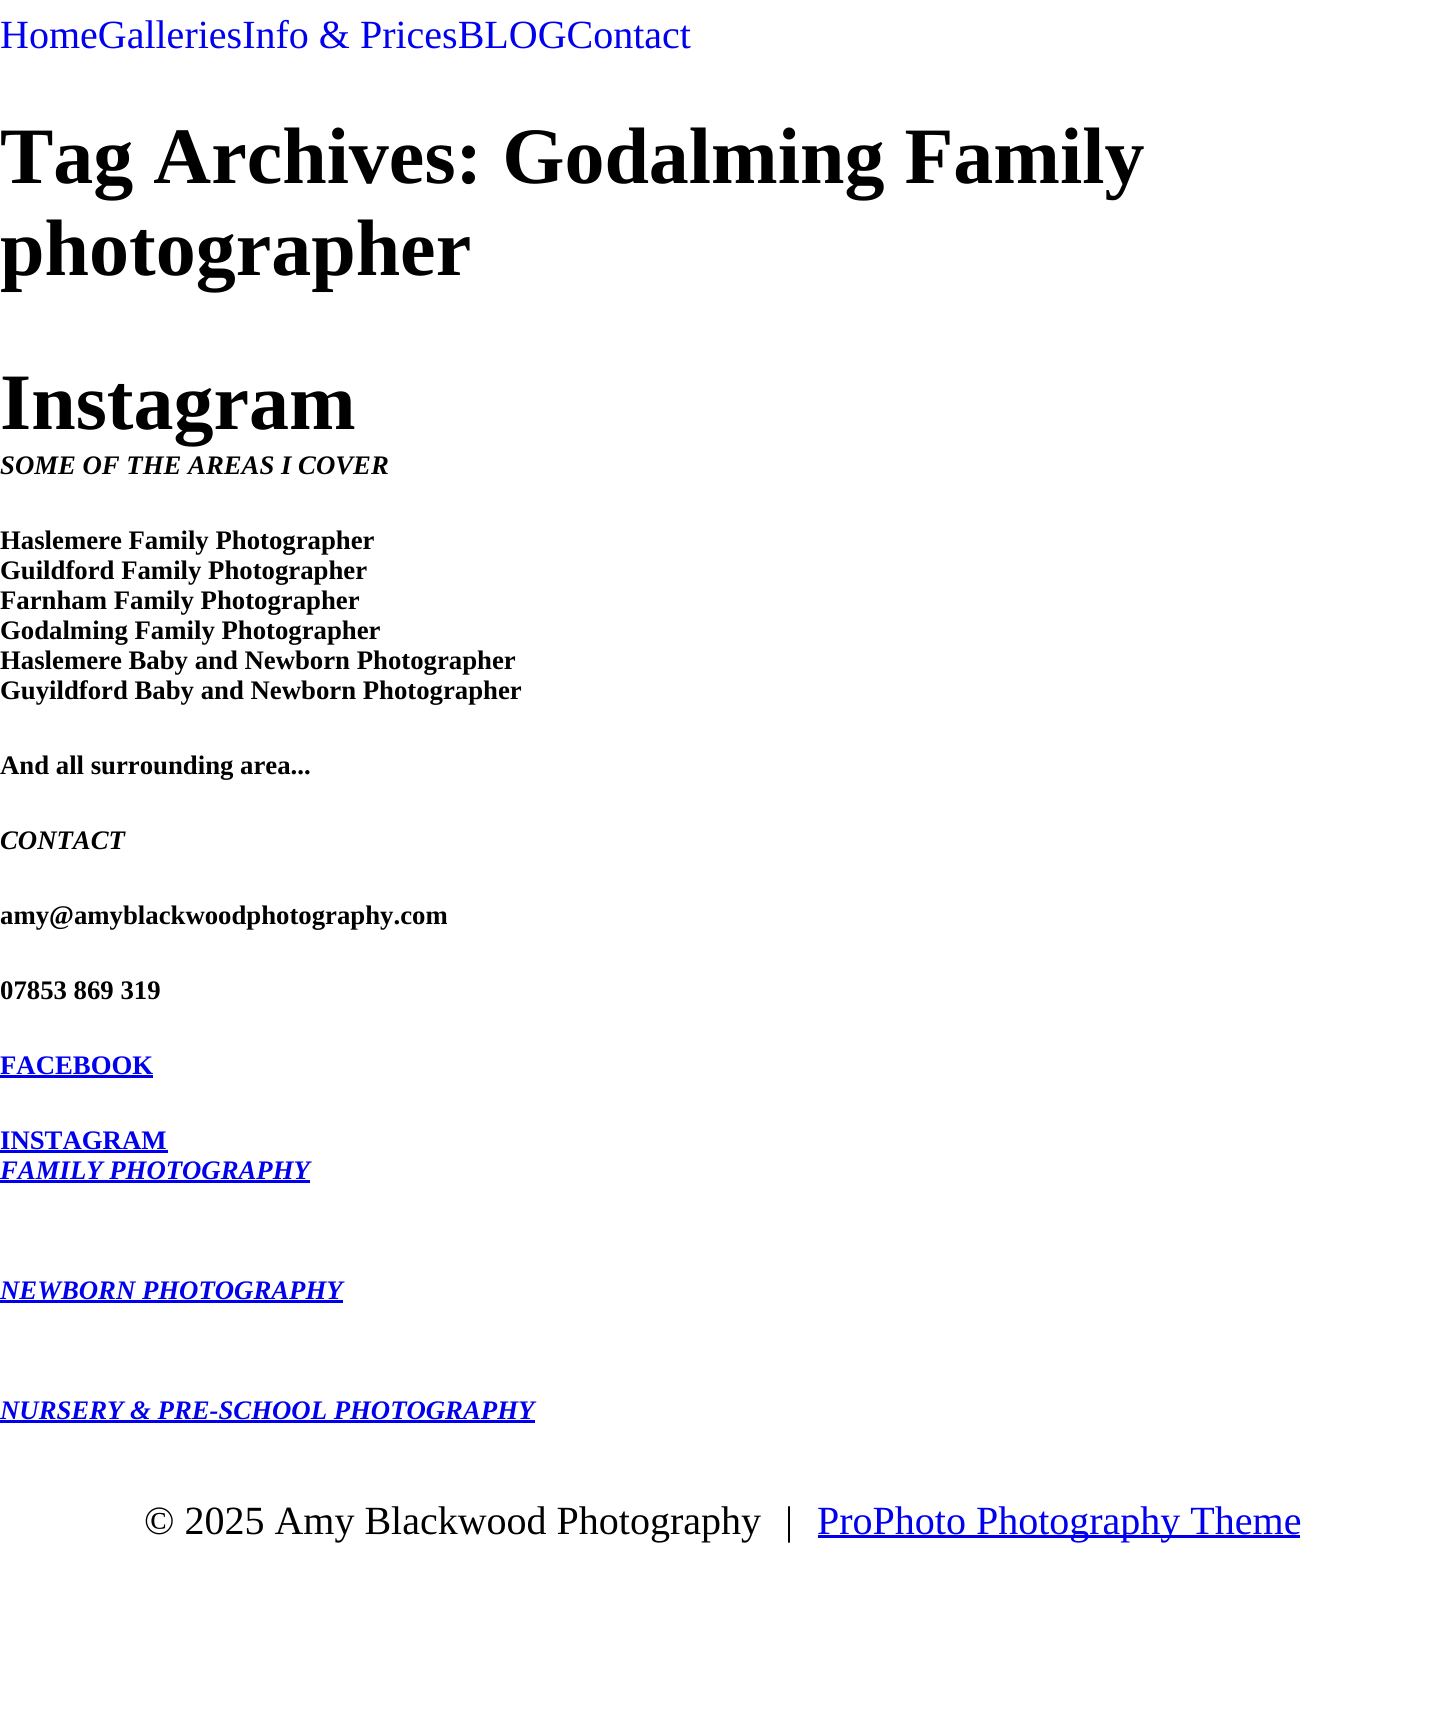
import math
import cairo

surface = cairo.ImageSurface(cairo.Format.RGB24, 1444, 1713)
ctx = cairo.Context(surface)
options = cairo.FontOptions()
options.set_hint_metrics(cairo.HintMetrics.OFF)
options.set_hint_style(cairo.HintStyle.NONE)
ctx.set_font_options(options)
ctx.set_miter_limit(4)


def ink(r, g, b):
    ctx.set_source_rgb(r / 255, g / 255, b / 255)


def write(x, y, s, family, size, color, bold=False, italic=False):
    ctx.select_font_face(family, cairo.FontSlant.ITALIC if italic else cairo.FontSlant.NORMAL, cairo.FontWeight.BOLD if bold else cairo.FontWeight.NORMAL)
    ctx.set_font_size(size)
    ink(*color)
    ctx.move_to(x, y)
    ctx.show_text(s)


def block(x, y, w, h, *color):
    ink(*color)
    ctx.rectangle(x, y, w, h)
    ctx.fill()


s1 = dict(family="Liberation Serif", size=40, color=(0, 0, 238))
s2 = dict(family="Liberation Serif", size=80, color=(0, 0, 0), bold=True)
s3 = dict(family="Liberation Serif", size=26.75, color=(0, 0, 0), bold=True, italic=True)
s4 = dict(family="Liberation Serif", size=26.75, color=(0, 0, 0), bold=True)
s5 = dict(family="Liberation Serif", size=26.75, color=(0, 0, 238), bold=True)
s6 = dict(family="Liberation Serif", size=26.75, color=(0, 0, 238), bold=True, italic=True)
s7 = dict(family="Liberation Serif", size=40, color=(0, 0, 0))

ink(255, 255, 255)
ctx.paint()
write(0, 48, "HomeGalleriesInfo & PricesBLOGContact", **s1)
write(0, 183, "Tag Archives: Godalming Family", **s2)
write(0, 275, "photographer", **s2)
write(0, 429, "Instagram", **s2)
write(0, 474, "SOME OF THE AREAS I COVER", **s3)
write(0, 549, "Haslemere Family Photographer", **s4)
write(0, 579, "Guildford Family Photographer", **s4)
write(0, 609, "Farnham Family Photographer", **s4)
write(0, 639, "Godalming Family Photographer", **s4)
write(0, 669, "Haslemere Baby and Newborn Photographer", **s4)
write(0, 699, "Guyildford Baby and Newborn Photographer", **s4)
write(0, 774, "And all surrounding area...", **s4)
write(0, 849, "CONTACT", **s3)
write(0, 924, "amy@amyblackwoodphotography.com", **s4)
write(0, 999, "07853 869 319", **s4)
write(0, 1074, "FACEBOOK", **s5)
block(0, 1075, 153, 3, 0, 0, 238)
write(0, 1149, "INSTAGRAM", **s5)
block(0, 1150, 168, 3, 0, 0, 238)
write(0, 1179, "FAMILY PHOTOGRAPHY", **s6)
block(0, 1180, 310, 3, 0, 0, 238)
write(0, 1299, "NEWBORN PHOTOGRAPHY", **s6)
block(0, 1300, 343, 3, 0, 0, 238)
write(0, 1419, "NURSERY & PRE-SCHOOL PHOTOGRAPHY", **s6)
block(0, 1420, 535, 3, 0, 0, 238)
write(144, 1534, "© 2025 Amy Blackwood Photography", **s7)
write(785, 1534, "|", **s7)
block(818, 1535, 482, 3, 0, 0, 238)
write(817, 1534, "ProPhoto Photography Theme", **s1)
surface.write_to_png("screenshot.png")
